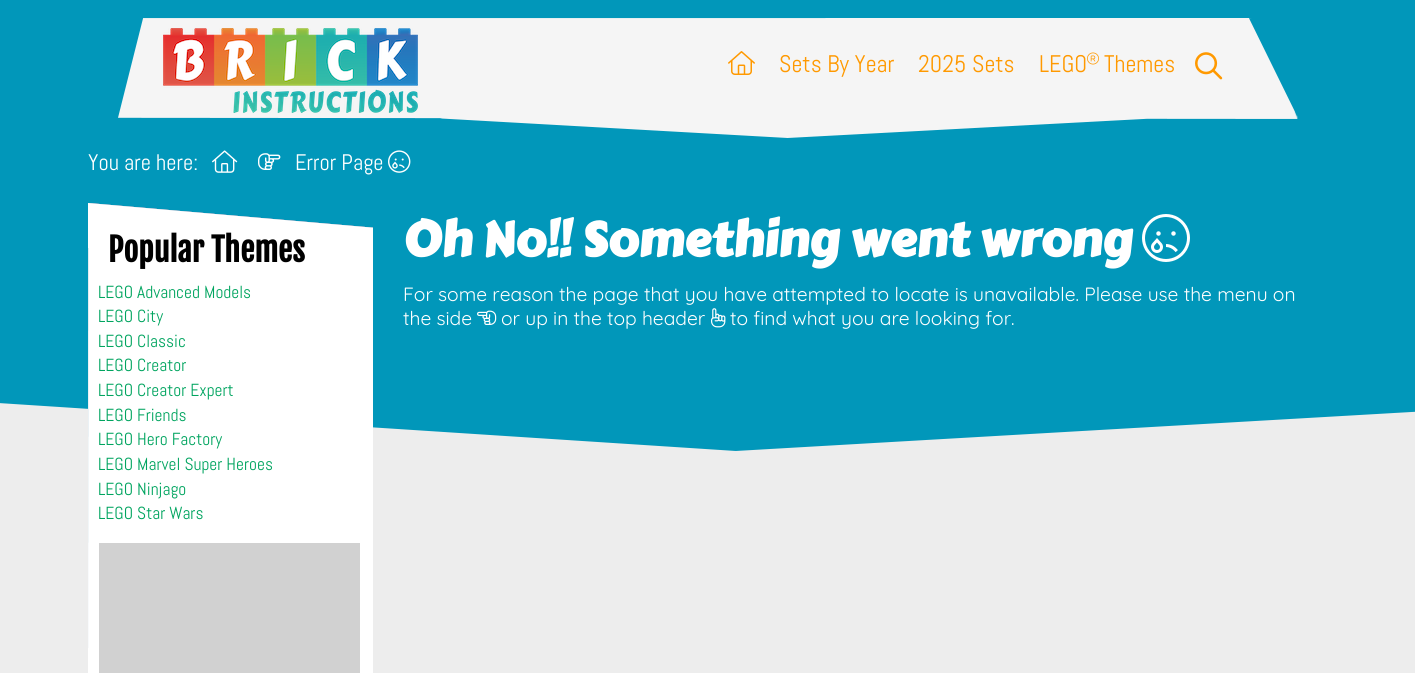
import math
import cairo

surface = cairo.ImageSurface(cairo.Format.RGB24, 1415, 673)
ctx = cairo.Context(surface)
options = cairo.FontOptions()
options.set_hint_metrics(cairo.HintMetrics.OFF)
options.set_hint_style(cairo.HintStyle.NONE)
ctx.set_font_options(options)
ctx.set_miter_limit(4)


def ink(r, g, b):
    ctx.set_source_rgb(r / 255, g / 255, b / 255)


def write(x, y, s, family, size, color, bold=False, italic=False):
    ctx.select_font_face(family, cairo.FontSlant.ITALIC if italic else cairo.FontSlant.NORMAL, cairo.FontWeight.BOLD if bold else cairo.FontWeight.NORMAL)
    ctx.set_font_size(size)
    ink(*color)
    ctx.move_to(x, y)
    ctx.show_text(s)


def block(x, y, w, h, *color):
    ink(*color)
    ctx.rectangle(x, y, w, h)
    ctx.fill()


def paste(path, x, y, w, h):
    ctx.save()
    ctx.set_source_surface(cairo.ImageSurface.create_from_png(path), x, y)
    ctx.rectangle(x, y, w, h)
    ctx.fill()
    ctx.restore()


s1 = dict(family="Abel", size=24, color=(255, 153, 0))
s2 = dict(family="Abel", size=22.5, color=(255, 255, 255))
s3 = dict(family="Fjalla One", size=32, color=(0, 0, 0), bold=True)
s4 = dict(family="Abel", size=17.5, color=(0, 164, 95))
s5 = dict(family="Carter One", size=48, color=(255, 255, 255), bold=True)
s6 = dict(family="Quicksand Light", size=19.2, color=(255, 255, 255))

ink(237, 237, 237)
ctx.paint()
paste("pic1.png", 0, 0, 1415, 451)
paste("pic2.png", 118, 18, 1180, 120)
paste("pic3.png", 163, 28, 255, 85)
paste("pic4.png", 728, 51, 27, 24)
write(779, 72, "Sets By Year", **s1)
write(918, 72, "2025 Sets", **s1)
write(1039, 72, "LEGO", **s1)
paste("pic5.png", 1087, 52, 12, 13)
write(1104, 72, "Themes", **s1)
paste("pic6.png", 1195, 52, 28, 28)
write(88, 170, "You are here:", **s2)
paste("pic7.png", 212, 150, 26, 23)
paste("pic8.png", 258, 153, 23, 17)
write(295, 170, "Error Page", **s2)
paste("pic9.png", 388, 150, 23, 23)
block(88, 648, 285, 25, 255, 255, 255)
paste("pic10.png", 88, 203, 285, 445)
write(108, 262, "Popular Themes", **s3)
write(98, 298, "LEGO Advanced Models", **s4)
write(98, 322, "LEGO City", **s4)
write(98, 347, "LEGO Classic", **s4)
write(98, 371, "LEGO Creator", **s4)
write(98, 396, "LEGO Creator Expert", **s4)
write(98, 421, "LEGO Friends", **s4)
write(98, 445, "LEGO Hero Factory", **s4)
write(98, 470, "LEGO Marvel Super Heroes", **s4)
write(98, 495, "LEGO Ninjago", **s4)
write(98, 519, "LEGO Star Wars", **s4)
block(99, 543, 261, 130, 209, 209, 209)
write(403, 256, "Oh No!! Something went wrong", **s5)
paste("pic11.png", 1142, 214, 48, 48)
write(403, 301, "For some reason the page that you have attempted to locate is unavailable. Please use the menu on", **s6)
write(403, 325, "the side", **s6)
paste("pic12.png", 477, 310, 20, 15)
write(501, 325, "or up in the top header", **s6)
paste("pic13.png", 711, 308, 15, 20)
write(730, 325, "to find what you are looking for.", **s6)
surface.write_to_png("screenshot.png")
